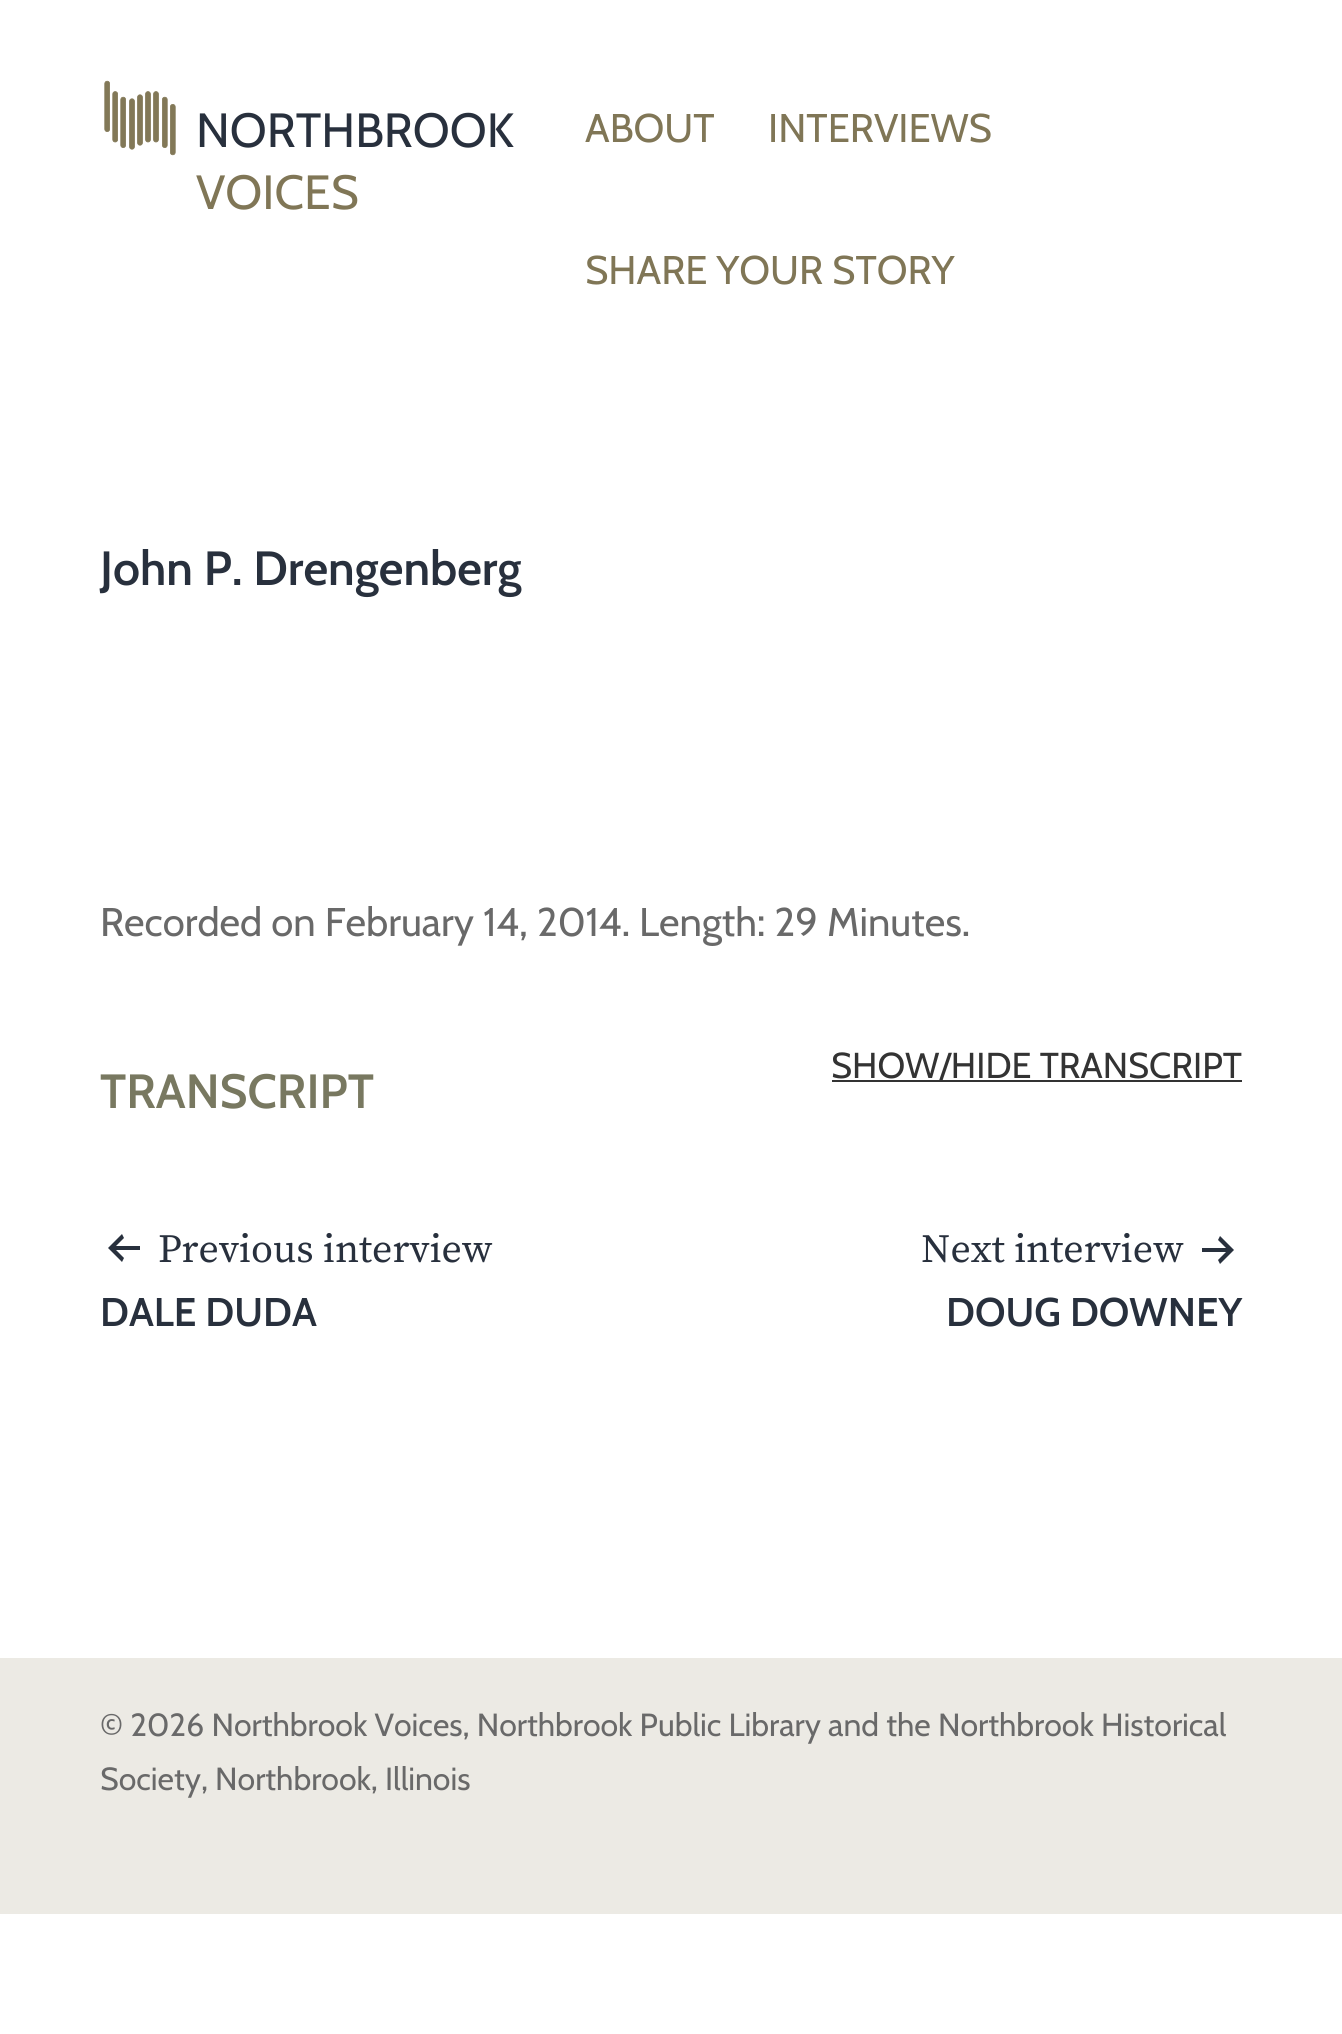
import math
import cairo

surface = cairo.ImageSurface(cairo.Format.RGB24, 1342, 2034)
ctx = cairo.Context(surface)
options = cairo.FontOptions()
options.set_hint_metrics(cairo.HintMetrics.OFF)
options.set_hint_style(cairo.HintStyle.NONE)
ctx.set_font_options(options)
ctx.set_miter_limit(4)


def ink(r, g, b):
    ctx.set_source_rgb(r / 255, g / 255, b / 255)


def write(x, y, s, family, size, color, bold=False, italic=False):
    ctx.select_font_face(family, cairo.FontSlant.ITALIC if italic else cairo.FontSlant.NORMAL, cairo.FontWeight.BOLD if bold else cairo.FontWeight.NORMAL)
    ctx.set_font_size(size)
    ink(*color)
    ctx.move_to(x, y)
    ctx.show_text(s)


def block(x, y, w, h, *color):
    ink(*color)
    ctx.rectangle(x, y, w, h)
    ctx.fill()


def paste(path, x, y, w, h):
    ctx.save()
    ctx.set_source_surface(cairo.ImageSurface.create_from_png(path), x, y)
    ctx.rectangle(x, y, w, h)
    ctx.fill()
    ctx.restore()


s1 = dict(family="Cabin", size=48, color=(40, 48, 61))
s2 = dict(family="Cabin", size=48, color=(128, 118, 86))
s3 = dict(family="Cabin", size=40, color=(128, 118, 86))
s4 = dict(family="Cabin SemiBold", size=48, color=(40, 48, 61))
s5 = dict(family="Cabin", size=40, color=(105, 105, 105))
s6 = dict(family="Cabin", size=36, color=(51, 51, 51))
s7 = dict(family="Cabin SemiBold", size=48, color=(120, 120, 96))
s8 = dict(family="Source Serif Pro", size=40, color=(40, 48, 61))
s9 = dict(family="Cabin SemiBold", size=40, color=(40, 48, 61))
s10 = dict(family="Cabin", size=32, color=(105, 105, 105))

ink(255, 255, 255)
ctx.paint()
paste("pic1.png", 104, 80, 72, 76)
write(196, 147, "NORTHBROOK", **s1)
write(196, 209, "VOICES", **s2)
write(585, 142, "ABOUT", **s3)
write(768, 142, "INTERVIEWS", **s3)
write(585, 284, "SHARE YOUR STORY", **s3)
write(100, 585, "John P. Drengenberg", **s4)
write(100, 936, "Recorded on February 14, 2014. Length: 29 Minutes.", **s5)
block(832, 1080, 410, 2, 51, 51, 51)
write(831, 1078, "SHOW/HIDE TRANSCRIPT", **s6)
write(100, 1108, "TRANSCRIPT", **s7)
ink(40, 48, 61)
ctx.set_fill_rule(cairo.FillRule.EVEN_ODD)
ctx.new_path()
ctx.move_to(140, 1250)
ctx.line_to(140, 1246)
ctx.line_to(116, 1246)
ctx.line_to(124, 1238)
ctx.line_to(122, 1234)
ctx.line_to(108, 1248)
ctx.line_to(122, 1262)
ctx.line_to(124, 1258)
ctx.line_to(116, 1250)
ctx.close_path()
ctx.fill()
write(158, 1262, "Previous interview", **s8)
write(100, 1326, "DALE DUDA", **s9)
write(921, 1262, "Next interview", **s8)
ctx.new_path()
ctx.move_to(1202, 1252)
ctx.line_to(1202, 1248)
ctx.line_to(1226, 1248)
ctx.line_to(1218, 1240)
ctx.line_to(1220, 1236)
ctx.line_to(1234, 1250)
ctx.line_to(1220, 1264)
ctx.line_to(1218, 1260)
ctx.line_to(1226, 1252)
ctx.close_path()
ctx.fill()
write(946, 1326, "DOUG DOWNEY", **s9)
block(0, 1658, 1342, 256, 236, 234, 228)
write(100, 1736, "© 2026 Northbrook Voices, Northbrook Public Library and the Northbrook Historical", **s10)
write(100, 1790, "Society, Northbrook, Illinois", **s10)
surface.write_to_png("screenshot.png")
